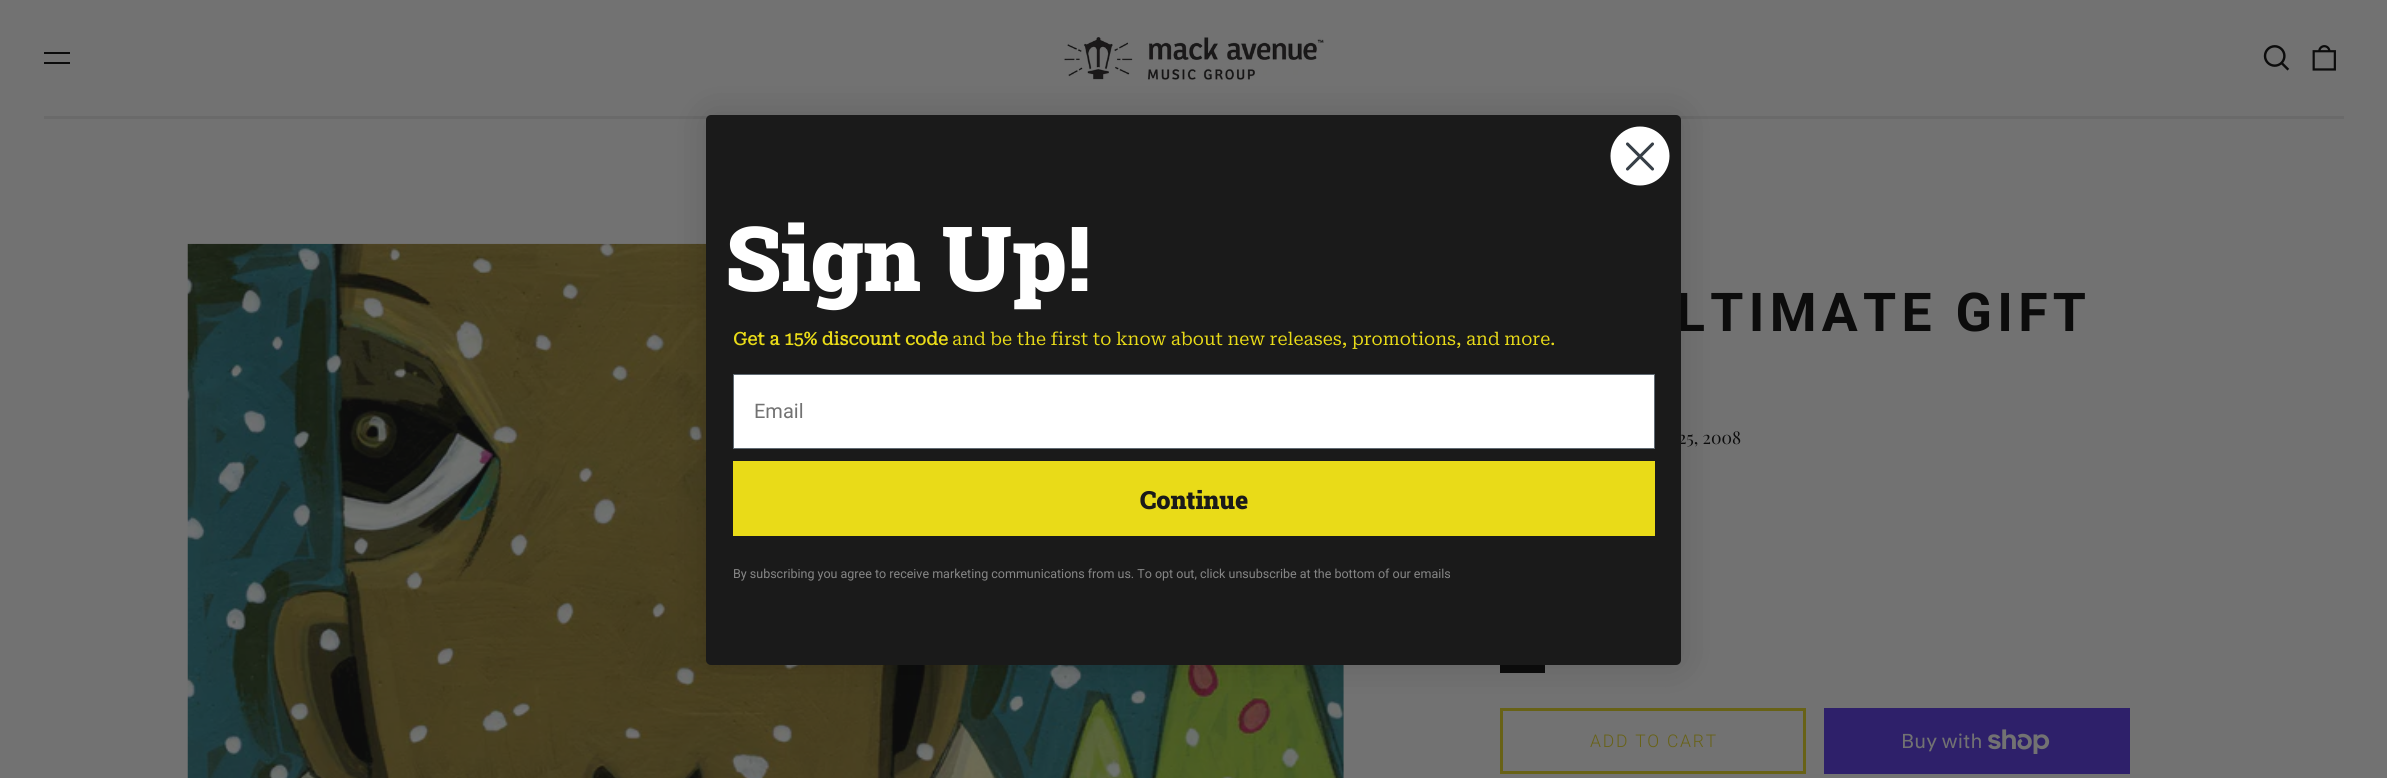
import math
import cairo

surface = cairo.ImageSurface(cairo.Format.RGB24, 2387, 778)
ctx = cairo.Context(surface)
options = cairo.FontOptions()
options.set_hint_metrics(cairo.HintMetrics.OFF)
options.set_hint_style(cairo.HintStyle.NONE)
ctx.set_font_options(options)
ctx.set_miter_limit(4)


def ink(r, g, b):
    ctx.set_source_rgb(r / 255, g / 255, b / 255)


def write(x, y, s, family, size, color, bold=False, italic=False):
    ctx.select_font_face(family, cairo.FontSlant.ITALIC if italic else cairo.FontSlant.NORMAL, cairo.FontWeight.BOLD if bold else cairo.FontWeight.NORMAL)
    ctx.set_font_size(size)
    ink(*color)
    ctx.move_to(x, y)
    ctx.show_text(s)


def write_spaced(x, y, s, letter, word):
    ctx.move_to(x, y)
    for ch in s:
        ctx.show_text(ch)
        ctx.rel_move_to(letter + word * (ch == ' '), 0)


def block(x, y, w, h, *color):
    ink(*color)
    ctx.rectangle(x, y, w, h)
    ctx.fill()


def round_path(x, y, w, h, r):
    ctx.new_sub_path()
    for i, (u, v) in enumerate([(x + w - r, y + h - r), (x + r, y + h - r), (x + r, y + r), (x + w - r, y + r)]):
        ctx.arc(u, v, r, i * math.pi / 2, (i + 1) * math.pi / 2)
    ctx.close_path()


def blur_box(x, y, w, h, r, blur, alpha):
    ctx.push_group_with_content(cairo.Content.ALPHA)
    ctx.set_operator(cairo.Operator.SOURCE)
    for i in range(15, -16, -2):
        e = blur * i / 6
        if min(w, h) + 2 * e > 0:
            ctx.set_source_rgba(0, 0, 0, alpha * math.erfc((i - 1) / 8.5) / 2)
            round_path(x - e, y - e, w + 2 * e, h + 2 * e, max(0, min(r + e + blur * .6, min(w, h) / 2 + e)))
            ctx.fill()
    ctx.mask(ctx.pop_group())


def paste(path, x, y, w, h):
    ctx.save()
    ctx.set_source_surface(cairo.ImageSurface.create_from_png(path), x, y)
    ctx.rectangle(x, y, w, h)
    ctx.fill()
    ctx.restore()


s1 = dict(family="Playfair Display", size=17.5, color=(12, 12, 12))
s2 = dict(family="Roboto Slab Black", size=90, color=(255, 255, 255))
s3 = dict(family="Roboto Serif", size=17.5, color=(233, 219, 24), bold=True)
s4 = dict(family="Roboto Serif", size=17.5, color=(233, 219, 24))
s5 = dict(family="Roboto", size=20, color=(114, 114, 114))
s6 = dict(family="Roboto Slab Black", size=25, color=(26, 26, 26))
s7 = dict(family="Roboto", size=12.5, color=(134, 134, 134))
s8 = dict(family="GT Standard", size=20, color=(114, 114, 114))

ink(114, 114, 114)
ctx.paint()
block(44, 116, 2300, 3, 106, 106, 106)
ink(12, 12, 12)
ctx.set_fill_rule(cairo.FillRule.EVEN_ODD)
ctx.new_path()
ctx.move_to(70, 62)
ctx.line_to(70, 64)
ctx.line_to(44, 64)
ctx.line_to(44, 62)
ctx.close_path()
ctx.move_to(70, 52)
ctx.line_to(70, 54)
ctx.line_to(44, 54)
ctx.line_to(44, 52)
ctx.close_path()
ctx.fill()
paste("pic1.png", 1063, 37, 261, 43)
paste("pic2.png", 2263, 45, 27, 26)
paste("pic3.png", 2312, 45, 24, 26)
paste("pic4.png", 187, 243, 1157, 535)
block(1500, 665, 45, 8, 12, 12, 12)
ctx.rectangle(1501.5, 709.5, 303, 63)
ink(104, 98, 22)
ctx.set_line_width(3)
ctx.stroke()
ink(0, 0, 0)
blur_box(706, 115, 975, 550, 5, 19, 0.15)
ctx.select_font_face("Roboto", cairo.FontSlant.NORMAL, cairo.FontWeight.BOLD)
ctx.set_font_size(53.5)
ink(12, 12, 12)
write_spaced(1676, 331, "LTIMATE GIFT", 5.3, 0)
write(1678, 444, "25, 2008", **s1)
ink(26, 26, 26)
round_path(706, 115, 975, 550, 5)
ctx.fill()
ink(255, 255, 255)
ctx.arc(1640, 156, 29.5, 0, 2 * math.pi)
ctx.fill()
ctx.new_path()
ctx.move_to(1627.5, 144)
ctx.line_to(1652.5, 169)
ctx.move_to(1627.5, 169)
ctx.line_to(1652.5, 144)
ctx.close_path()
ink(55, 63, 71)
ctx.set_line_width(3.1)
ctx.set_line_cap(cairo.LineCap.ROUND)
ctx.set_line_join(cairo.LineJoin.ROUND)
ctx.stroke()
write(725, 291, "Sign Up!", **s2)
write(733, 345, "Get a 15% discount code", **s3)
write(952, 345, "and be the first to know about new releases, promotions, and more.", **s4)
ink(255, 255, 255)
ctx.rectangle(733.5, 374.5, 921, 74)
ctx.fill_preserve()
ink(96, 106, 114)
ctx.set_line_width(1)
ctx.set_line_cap(cairo.LineCap.BUTT)
ctx.set_line_join(cairo.LineJoin.MITER)
ctx.stroke()
write(754, 418, "Email", **s5)
block(733, 461, 922, 75, 233, 219, 24)
write(1140, 509, "Continue", **s6)
write(733, 578, "By subscribing you agree to receive marketing communications from us. To opt out, click unsubscribe at the bottom of our emails", **s7)
ctx.select_font_face("Roboto Light")
ctx.set_font_size(17.5)
ink(104, 98, 22)
write_spaced(1590, 747, "ADD TO CART", 1.75, 0)
block(1824, 708, 306, 66, 46, 32, 106)
write(1901, 748, "Buy with", **s8)
paste("pic5.png", 1988, 729, 62, 25)
surface.write_to_png("screenshot.png")
